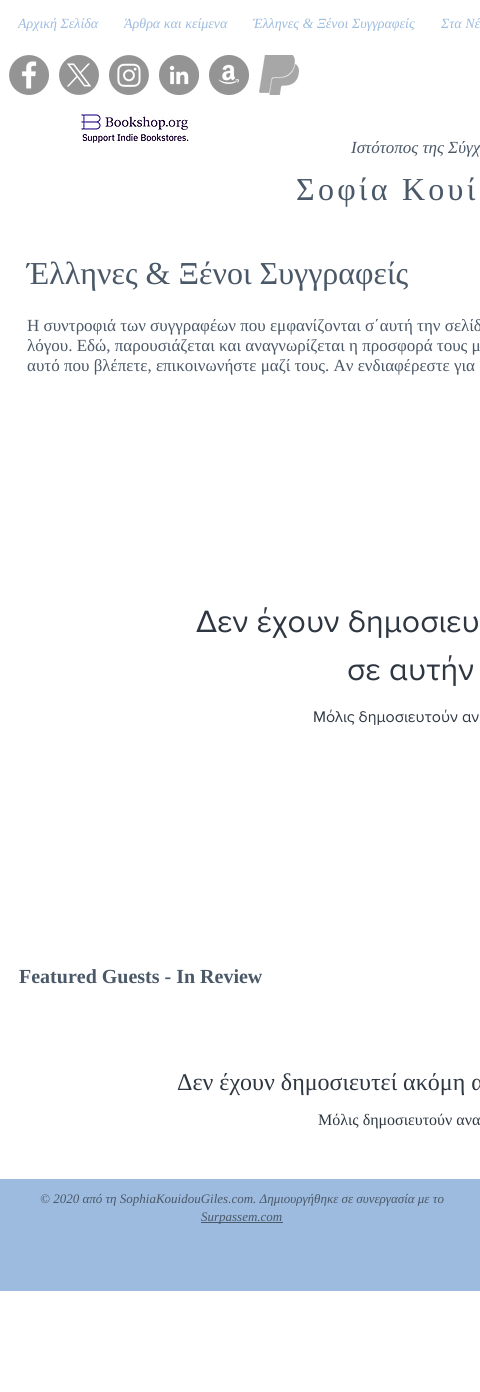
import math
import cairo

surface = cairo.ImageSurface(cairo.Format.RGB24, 480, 1392)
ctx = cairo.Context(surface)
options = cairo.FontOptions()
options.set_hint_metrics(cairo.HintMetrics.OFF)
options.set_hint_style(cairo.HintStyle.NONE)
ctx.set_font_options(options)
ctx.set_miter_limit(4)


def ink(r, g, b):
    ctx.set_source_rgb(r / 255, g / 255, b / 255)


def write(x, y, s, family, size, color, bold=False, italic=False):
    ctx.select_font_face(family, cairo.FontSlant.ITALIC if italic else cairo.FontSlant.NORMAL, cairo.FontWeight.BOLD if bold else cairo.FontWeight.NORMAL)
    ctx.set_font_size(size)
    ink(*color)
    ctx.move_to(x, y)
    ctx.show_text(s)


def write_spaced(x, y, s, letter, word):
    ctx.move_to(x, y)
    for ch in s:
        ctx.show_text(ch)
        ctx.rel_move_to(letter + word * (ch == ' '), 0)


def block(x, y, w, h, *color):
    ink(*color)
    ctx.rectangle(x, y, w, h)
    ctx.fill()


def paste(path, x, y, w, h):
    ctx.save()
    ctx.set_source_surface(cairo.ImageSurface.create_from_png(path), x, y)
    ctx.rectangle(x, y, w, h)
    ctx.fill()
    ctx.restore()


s1 = dict(family="Liberation Serif", size=14, color=(157, 187, 223), italic=True)
s2 = dict(family="Liberation Serif", size=17, color=(74, 88, 104), italic=True)
s3 = dict(family="Liberation Serif", size=32, color=(74, 88, 104))
s4 = dict(family="Liberation Serif", size=17, color=(74, 88, 104))
s5 = dict(family="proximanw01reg", size=32, color=(46, 55, 65))
s6 = dict(family="proximanw01reg", size=16, color=(46, 55, 65))
s7 = dict(family="Liberation Serif", size=20, color=(74, 88, 104), bold=True)
s8 = dict(family="Liberation Serif", size=24, color=(46, 55, 65))
s9 = dict(family="Liberation Serif", size=16, color=(46, 55, 65))
s10 = dict(family="Liberation Serif", size=13, color=(74, 88, 104), italic=True)

ink(255, 255, 255)
ctx.paint()
write(18, 28, "Αρχική Σελίδα", **s1)
write(124, 28, "Άρθρα και κείμενα", **s1)
write(253, 28, "Έλληνες & Ξένοι Συγγραφείς", **s1)
write(441, 28, "Στα Νέ", **s1)
paste("pic1.png", 9, 55, 40, 40)
paste("pic2.png", 59, 55, 40, 40)
paste("pic3.png", 109, 55, 40, 40)
paste("pic4.png", 159, 55, 40, 40)
paste("pic5.png", 209, 55, 40, 40)
paste("pic6.png", 259, 55, 40, 40)
paste("pic7.png", 81, 114, 108, 29)
write(351, 153, "Ιστότοπος της Σύγχ", **s2)
ctx.select_font_face("Liberation Serif")
ctx.set_font_size(32)
write_spaced(296, 200, "Σοφία Κουί", 3.25, 0)
write(27, 284, "Έλληνες & Ξένοι Συγγραφείς", **s3)
write(27, 331, "Η συντροφιά των συγγραφέων που εμφανίζονται σ΄αυτή την σελίδ", **s4)
write(27, 351, "λόγου. Εδώ, παρουσιάζεται και αναγνωρίζεται η προσφορά τους μ", **s4)
write(27, 371, "αυτό που βλέπετε, επικοινωνήστε μαζί τους. Αν ενδιαφέρεστε για", **s4)
write(196, 632, "Δεν έχουν δημοσιευ", **s5)
write(347, 680, "σε αυτήν", **s5)
write(313, 722, "Μόλις δημοσιευτούν αν", **s6)
write(19, 983, "Featured Guests - In Review", **s7)
write(177, 1090, "Δεν έχουν δημοσιευτεί ακόμη α", **s8)
write(318, 1125, "Μόλις δημοσιευτούν ανα", **s9)
block(0, 1179, 480, 112, 157, 187, 223)
write(40, 1203, "© 2020 από τη SophiaKouidouGiles.com. Δημιουργήθηκε σε συνεργασία με το", **s10)
block(201, 1222, 82, 1, 74, 88, 104)
write(201, 1221, "Surpassem.com", **s10)
surface.write_to_png("screenshot.png")
